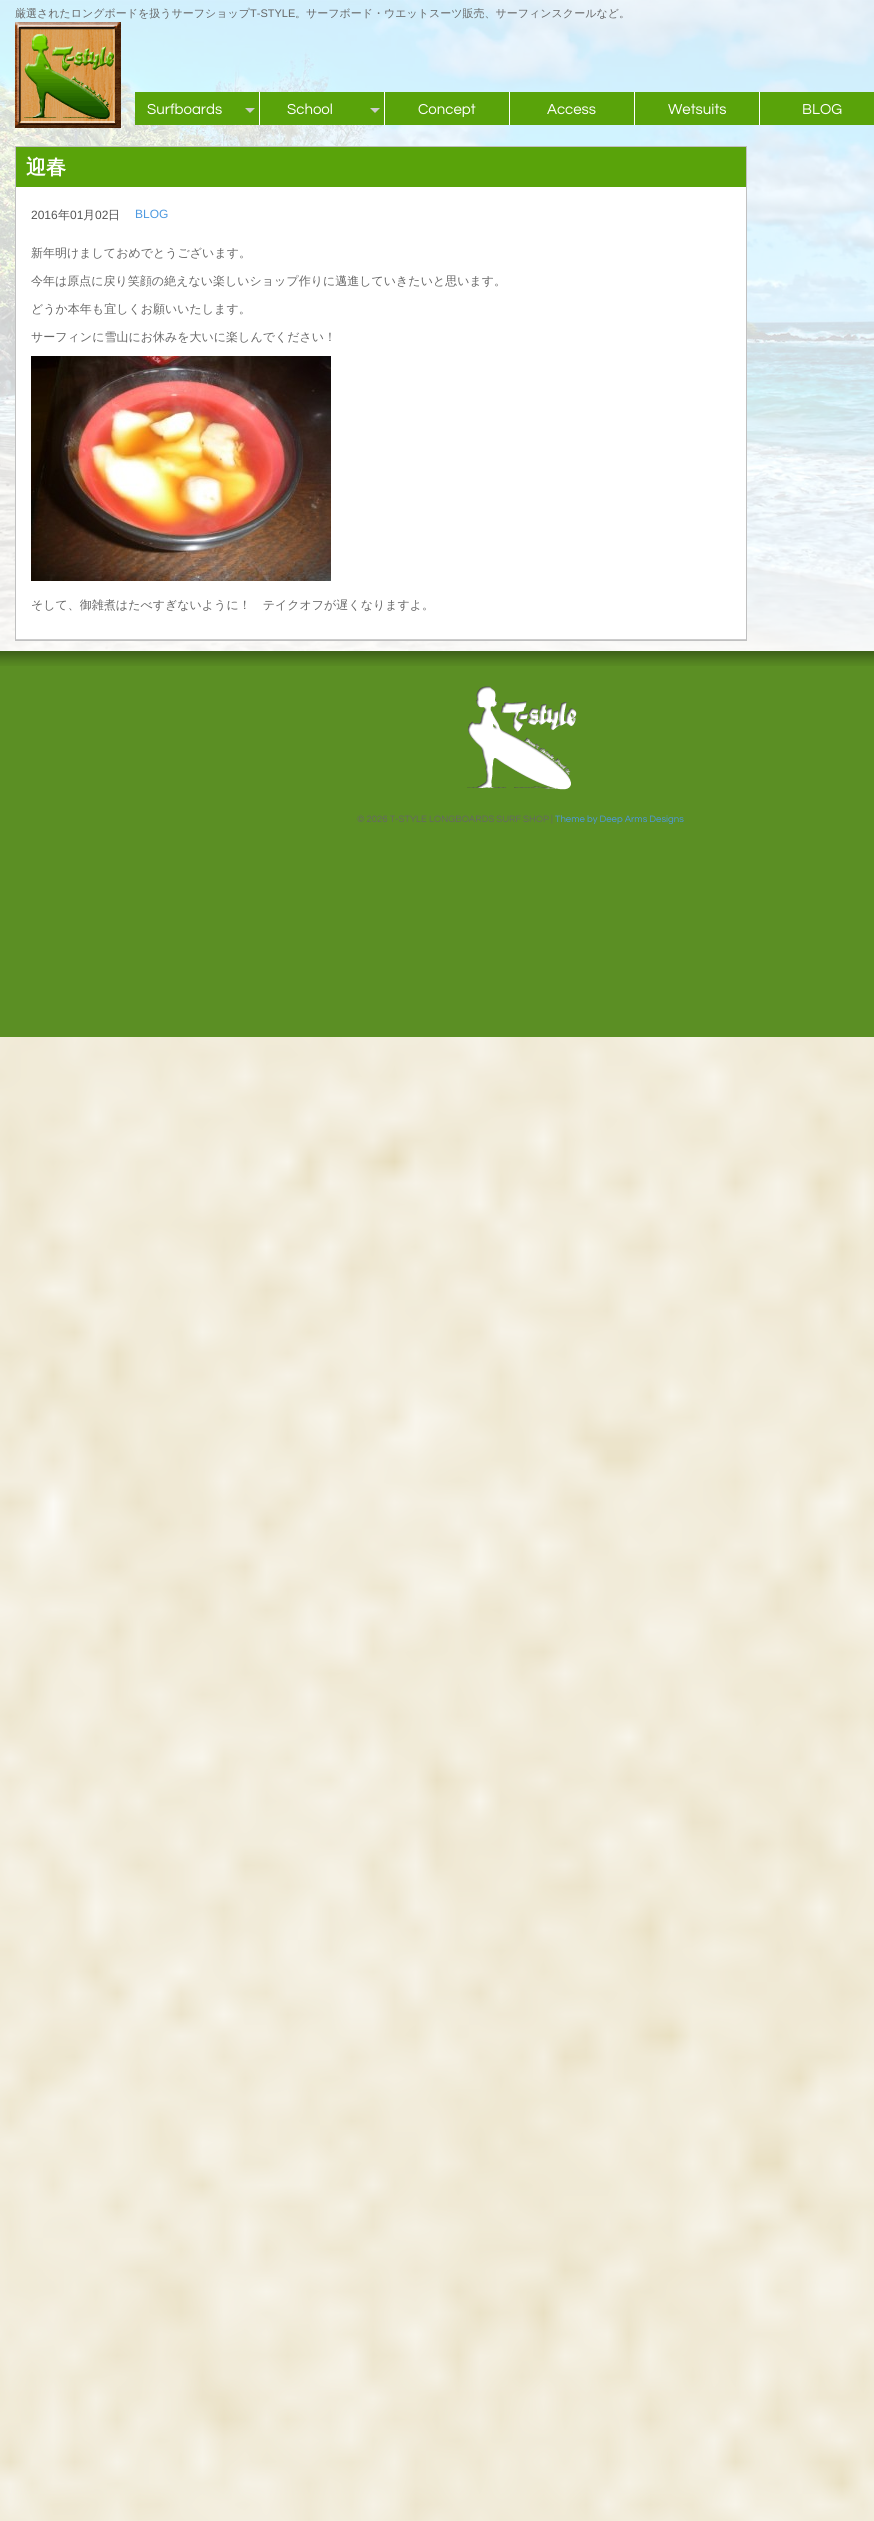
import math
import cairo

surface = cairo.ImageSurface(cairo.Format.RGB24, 874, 2521)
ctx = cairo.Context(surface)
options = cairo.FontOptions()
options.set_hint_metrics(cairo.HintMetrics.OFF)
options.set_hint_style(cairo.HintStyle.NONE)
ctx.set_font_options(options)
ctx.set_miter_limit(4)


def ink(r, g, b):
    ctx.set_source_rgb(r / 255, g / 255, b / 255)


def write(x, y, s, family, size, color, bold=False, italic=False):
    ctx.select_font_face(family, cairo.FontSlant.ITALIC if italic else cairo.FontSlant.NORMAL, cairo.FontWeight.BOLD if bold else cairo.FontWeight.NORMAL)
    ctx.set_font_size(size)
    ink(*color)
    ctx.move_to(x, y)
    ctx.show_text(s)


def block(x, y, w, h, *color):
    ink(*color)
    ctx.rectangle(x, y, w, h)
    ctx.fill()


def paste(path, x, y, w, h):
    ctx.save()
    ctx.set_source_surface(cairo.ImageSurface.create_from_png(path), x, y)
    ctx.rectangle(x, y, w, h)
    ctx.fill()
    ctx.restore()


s1 = dict(family="WenQuanYi Zen Hei Medium", size=11, color=(102, 102, 102))
s2 = dict(family="Liberation Sans", size=11, color=(102, 102, 102))
s3 = dict(family="Questrial", size=15, color=(255, 255, 255))
s4 = dict(family="WenQuanYi Zen Hei", size=20, color=(255, 255, 255), bold=True)
s5 = dict(family="Liberation Sans", size=12, color=(84, 84, 84))
s6 = dict(family="WenQuanYi Zen Hei Medium", size=12, color=(84, 84, 84))
s7 = dict(family="Liberation Sans", size=12, color=(77, 153, 224))
s8 = dict(family="WenQuanYi Zen Hei Medium", size=12, color=(102, 102, 102))
s9 = dict(family="Questrial", size=9.6, color=(102, 102, 102))
s10 = dict(family="Questrial", size=9.6, color=(77, 153, 224))

ink(255, 255, 255)
ctx.paint()
paste("pic1.png", 0, 0, 874, 2521)
ctx.set_source_rgba(1, 1, 1, 0.82)
ctx.rectangle(0, 0, 874, 651)
ctx.fill()
write(15, 17, "厳選されたロングボードを扱うサーフショップ", **s1)
write(250, 17, "T-STYLE", **s2)
write(295, 17, "。サーフボード・ウエットスーツ販売、サーフィンスクールなど。", **s1)
paste("pic2.png", 15, 22, 106, 106)
block(135, 92, 739, 33, 89, 163, 10)
block(259, 92, 1, 33, 255, 255, 255)
write(147, 114, "Surfboards", **s3)
ink(204, 204, 204)
ctx.new_path()
ctx.move_to(245, 108)
ctx.line_to(255, 108)
ctx.line_to(250, 113)
ctx.close_path()
ctx.fill()
block(384, 92, 1, 33, 255, 255, 255)
write(287, 114, "School", **s3)
ink(204, 204, 204)
ctx.new_path()
ctx.move_to(370, 108)
ctx.line_to(380, 108)
ctx.line_to(375, 113)
ctx.close_path()
ctx.fill()
block(509, 92, 1, 33, 255, 255, 255)
write(418, 114, "Concept", **s3)
block(634, 92, 1, 33, 255, 255, 255)
write(547, 114, "Access", **s3)
block(759, 92, 1, 33, 255, 255, 255)
write(668, 114, "Wetsuits", **s3)
write(802, 114, "BLOG", **s3)
block(16, 187, 730, 452, 255, 255, 255)
ctx.rectangle(15.5, 146.5, 731, 494)
ink(192, 192, 192)
ctx.set_line_width(1)
ctx.stroke()
block(16, 147, 730, 40, 89, 163, 10)
write(26, 174, "迎春", **s4)
block(16, 639, 730, 1, 204, 204, 204)
write(31, 219, "2016", **s5)
write(58, 219, "年", **s6)
write(70, 219, "01", **s5)
write(83, 219, "月", **s6)
write(95, 219, "02", **s5)
write(108, 219, "日", **s6)
write(135, 218, "BLOG", **s7)
write(31, 257, "新年明けましておめでとうございます。", **s8)
write(31, 285, "今年は原点に戻り笑顔の絶えない楽しいショップ作りに邁進していきたいと思います。", **s8)
write(31, 313, "どうか本年も宜しくお願いいたします。", **s8)
write(31, 341, "サーフィンに雪山にお休みを大いに楽しんでください！", **s8)
paste("pic3.png", 31, 356, 300, 225)
write(31, 609, "そして、御雑煮はたべすぎないように！　テイクオフが遅くなりますよ。", **s8)
block(0, 666, 874, 371, 91, 143, 36)
paste("pic4.png", 0, 651, 874, 15)
paste("pic5.png", 467, 686, 110, 104)
write(357, 822, "© 2026 T-STYLE LONGBOARDS SURF SHOP |", **s9)
write(555, 822, "Theme by Deep Arms Designs", **s10)
surface.write_to_png("screenshot.png")
